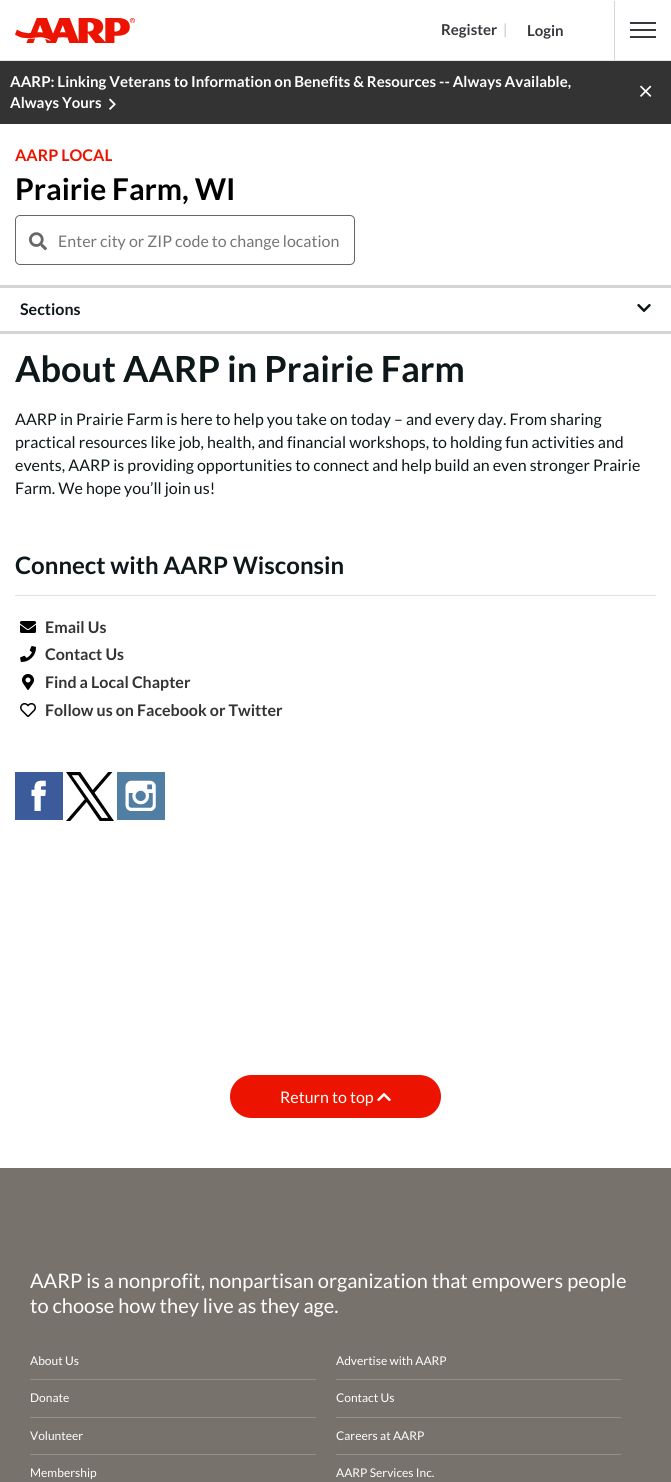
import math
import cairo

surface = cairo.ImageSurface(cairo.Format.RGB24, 671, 1482)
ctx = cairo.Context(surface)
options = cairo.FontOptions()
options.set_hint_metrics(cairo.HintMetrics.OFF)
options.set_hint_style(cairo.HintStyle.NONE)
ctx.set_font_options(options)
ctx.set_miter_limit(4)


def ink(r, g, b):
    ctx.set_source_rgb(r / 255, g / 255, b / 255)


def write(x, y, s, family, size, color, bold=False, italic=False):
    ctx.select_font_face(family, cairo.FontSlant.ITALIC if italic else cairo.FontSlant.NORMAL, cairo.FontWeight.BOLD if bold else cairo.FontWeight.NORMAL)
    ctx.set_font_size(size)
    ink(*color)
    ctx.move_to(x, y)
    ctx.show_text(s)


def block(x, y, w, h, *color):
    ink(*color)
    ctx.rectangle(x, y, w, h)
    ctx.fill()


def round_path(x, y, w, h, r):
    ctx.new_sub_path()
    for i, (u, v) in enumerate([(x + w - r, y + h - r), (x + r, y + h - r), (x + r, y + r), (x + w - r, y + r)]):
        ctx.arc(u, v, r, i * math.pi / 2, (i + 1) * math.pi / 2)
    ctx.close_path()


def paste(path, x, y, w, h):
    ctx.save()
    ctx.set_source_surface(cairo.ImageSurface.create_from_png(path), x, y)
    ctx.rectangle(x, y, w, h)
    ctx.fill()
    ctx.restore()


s1 = dict(family="Lato", size=15, color=(55, 56, 61), bold=True)
s2 = dict(family="Lato", size=15, color=(213, 213, 213), bold=True)
s3 = dict(family="Lato", size=15, color=(255, 255, 255), bold=True)
s4 = dict(family="Lato", size=16, color=(236, 19, 0), bold=True)
s5 = dict(family="Lato", size=30, color=(0, 0, 0), bold=True)
s6 = dict(family="Lato", size=16, color=(117, 117, 117))
s7 = dict(family="Lato", size=16, color=(14, 23, 25), bold=True)
s8 = dict(family="Lato", size=36, color=(14, 23, 25), bold=True)
s9 = dict(family="Lato", size=16, color=(14, 23, 25))
s10 = dict(family="Lato", size=24, color=(14, 23, 25), bold=True)
s11 = dict(family="Lato", size=16, color=(51, 51, 51), bold=True)
s12 = dict(family="Lato", size=16, color=(255, 255, 255))
s13 = dict(family="Lato", size=20, color=(255, 255, 255))
s14 = dict(family="Lato", size=12, color=(255, 255, 255))

ink(255, 255, 255)
ctx.paint()
block(0, 60, 671, 1, 229, 229, 229)
paste("pic1.png", 15, 18, 120, 25)
write(441, 35, "Register", **s1)
write(503, 35, "|", **s2)
block(614, 1, 1, 59, 213, 213, 213)
write(527, 36, "Login", **s1)
block(630, 22, 26, 2, 55, 56, 61)
block(630, 29, 26, 2, 55, 56, 61)
block(630, 36, 26, 2, 55, 56, 61)
block(0, 61, 671, 63, 51, 51, 51)
write(10, 87, "AARP: Linking Veterans to Information on Benefits & Resources -- Always Available,", **s3)
write(10, 108, "Always Yours", **s3)
paste("pic2.png", 109, 98, 7, 12)
paste("pic3.png", 640, 85, 12, 12)
write(15, 161, "AARP LOCAL", **s4)
write(15, 200, "Prairie Farm, WI", **s5)
round_path(15.5, 215.5, 339, 49, 4.5)
ink(103, 103, 103)
ctx.set_line_width(1)
ctx.stroke()
paste("pic4.png", 29, 232, 18, 19)
write(58, 247, "Enter city or ZIP code to change location", **s6)
block(0, 285, 671, 3, 213, 213, 213)
block(0, 331, 671, 3, 213, 213, 213)
write(20, 315, "Sections", **s7)
paste("pic5.png", 637, 303, 14, 10)
write(15, 382, "About AARP in Prairie Farm", **s8)
write(15, 425, "AARP in Prairie Farm is here to help you take on today – and every day. From sharing", **s9)
write(15, 448, "practical resources like job, health, and financial workshops, to holding fun activities and", **s9)
write(15, 471, "events, AARP is providing opportunities to connect and help build an even stronger Prairie", **s9)
write(15, 494, "Farm. We hope you’ll join us!", **s9)
write(15, 574, "Connect with AARP Wisconsin", **s10)
block(15, 595, 641, 1, 225, 225, 225)
paste("pic6.png", 20, 621, 16, 12)
write(45, 633, "Email Us", **s11)
paste("pic7.png", 20, 646, 16, 16)
write(45, 660, "Contact Us", **s11)
paste("pic8.png", 22, 674, 12, 16)
write(45, 688, "Find a Local Chapter", **s11)
paste("pic9.png", 20, 703, 16, 14)
write(45, 716, "Follow us on Facebook or Twitter", **s11)
paste("pic10.png", 15, 772, 48, 48)
paste("pic11.png", 66, 772, 48, 49)
paste("pic12.png", 117, 772, 48, 48)
ink(236, 19, 0)
round_path(230, 1075, 211, 43, 21.5)
ctx.fill()
write(280, 1103, "Return to top", **s12)
paste("pic13.png", 377, 1092, 14, 10)
block(0, 1168, 671, 314, 119, 114, 107)
write(30, 1288, "AARP is a nonprofit, nonpartisan organization that empowers people", **s13)
write(30, 1313, "to choose how they live as they age.", **s13)
block(30, 1379, 286, 1, 146, 142, 137)
write(30, 1365, "About Us", **s14)
block(30, 1417, 286, 1, 146, 142, 137)
write(30, 1402, "Donate", **s14)
block(30, 1454, 286, 1, 146, 142, 137)
write(30, 1440, "Volunteer", **s14)
write(30, 1477, "Membership", **s14)
block(336, 1379, 285, 1, 146, 142, 137)
write(336, 1365, "Advertise with AARP", **s14)
block(336, 1417, 285, 1, 146, 142, 137)
write(336, 1402, "Contact Us", **s14)
block(336, 1454, 285, 1, 146, 142, 137)
write(336, 1440, "Careers at AARP", **s14)
write(336, 1477, "AARP Services Inc.", **s14)
surface.write_to_png("screenshot.png")
